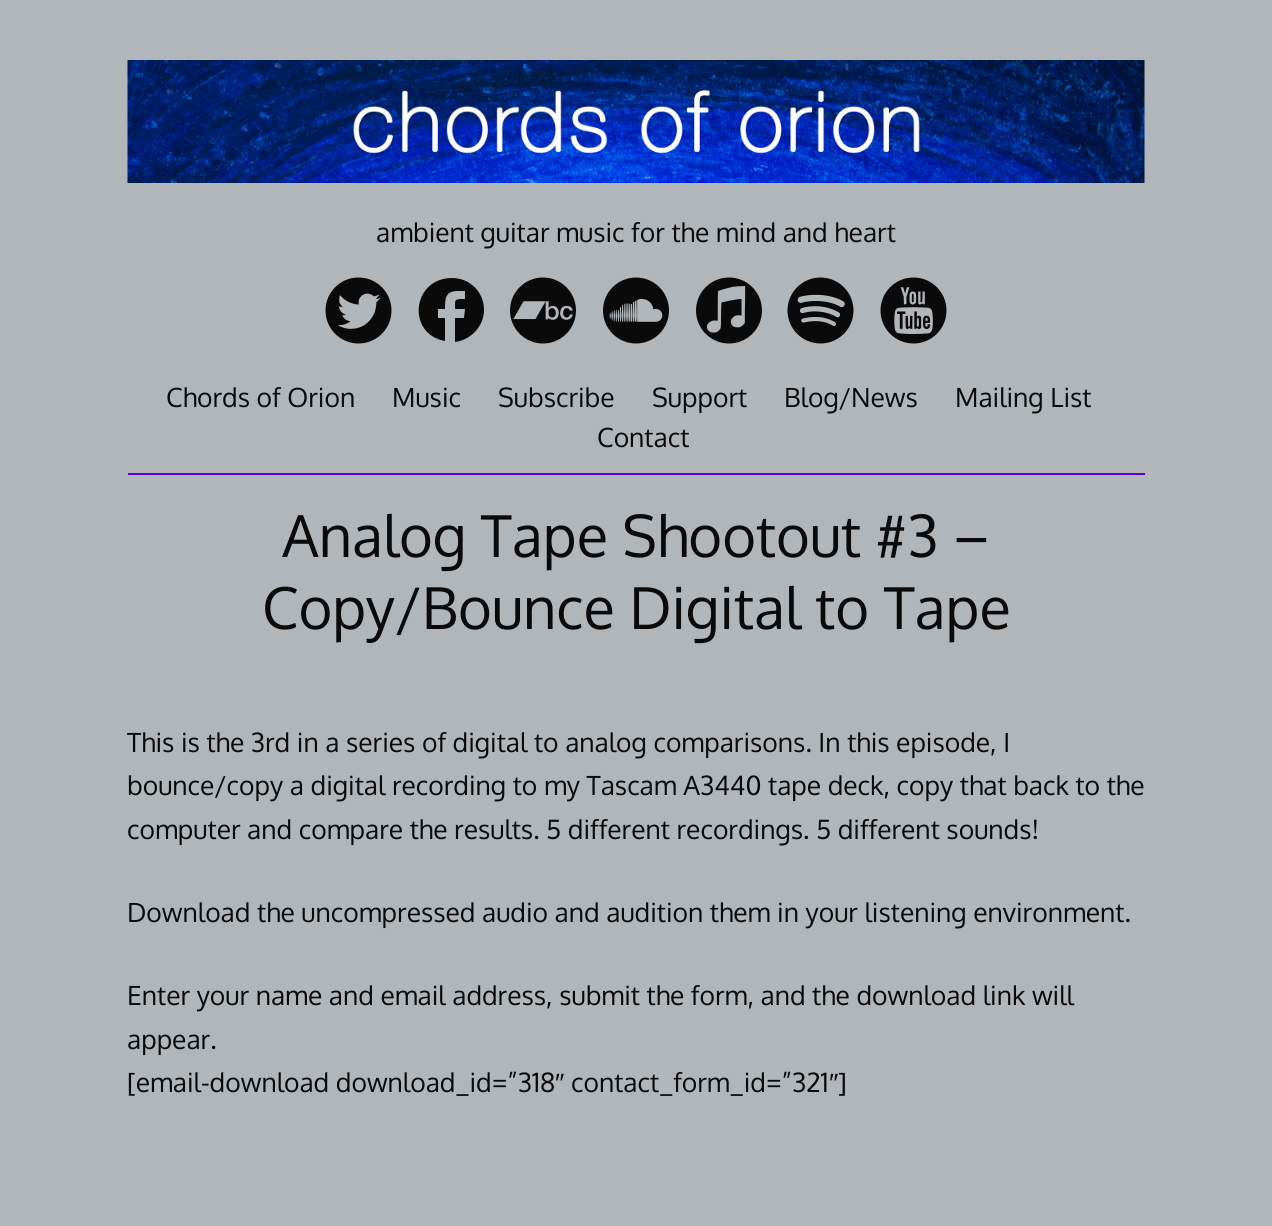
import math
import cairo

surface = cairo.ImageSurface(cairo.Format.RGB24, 1272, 1226)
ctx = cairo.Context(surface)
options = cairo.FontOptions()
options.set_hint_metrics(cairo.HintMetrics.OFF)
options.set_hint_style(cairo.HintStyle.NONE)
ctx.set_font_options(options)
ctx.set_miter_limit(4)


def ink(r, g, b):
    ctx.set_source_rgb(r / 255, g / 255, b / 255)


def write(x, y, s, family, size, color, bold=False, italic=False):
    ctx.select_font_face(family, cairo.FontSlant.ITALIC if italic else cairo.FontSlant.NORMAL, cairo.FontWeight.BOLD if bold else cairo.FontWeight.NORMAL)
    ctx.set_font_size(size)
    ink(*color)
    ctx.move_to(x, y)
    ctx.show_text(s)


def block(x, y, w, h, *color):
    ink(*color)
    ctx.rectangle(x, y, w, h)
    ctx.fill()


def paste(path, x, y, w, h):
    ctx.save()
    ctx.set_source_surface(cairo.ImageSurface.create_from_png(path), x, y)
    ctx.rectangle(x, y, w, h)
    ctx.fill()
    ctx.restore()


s1 = dict(family="Oxygen", size=26.4, color=(10, 10, 10))
s2 = dict(family="Oxygen", size=57.75, color=(10, 10, 10))
s3 = dict(family="Liberation Sans", size=26.4, color=(10, 10, 10))

ink(177, 182, 186)
ctx.paint()
block(128, 473, 1017, 2, 92, 0, 206)
paste("pic1.png", 127, 60, 1018, 123)
write(376, 242, "ambient guitar music for the mind and heart", **s1)
paste("pic2.png", 325, 277, 67, 67)
ctx.set_fill_rule(cairo.FillRule.EVEN_ODD)
ctx.new_path()
ctx.move_to(452, 278)
ctx.curve_to(470, 278, 484, 292, 484, 310)
ctx.curve_to(484, 326, 471, 340, 455, 342)
ctx.line_to(455, 318)
ctx.line_to(464, 318)
ctx.line_to(465, 309)
ctx.line_to(455, 309)
ctx.curve_to(455, 299, 454, 299, 465, 299)
ctx.line_to(465, 291)
ctx.line_to(458, 291)
ctx.curve_to(445, 291, 445, 299, 445, 309)
ctx.line_to(438, 309)
ctx.line_to(438, 318)
ctx.line_to(445, 318)
ctx.line_to(445, 341)
ctx.curve_to(406, 334, 412, 278, 452, 278)
ctx.close_path()
ctx.fill()
paste("pic3.png", 510, 277, 66, 67)
paste("pic4.png", 603, 277, 66, 67)
paste("pic5.png", 696, 277, 66, 67)
paste("pic6.png", 787, 277, 67, 67)
paste("pic7.png", 880, 277, 67, 67)
write(166, 407, "Chords of Orion", **s1)
write(392, 407, "Music", **s1)
write(498, 407, "Subscribe", **s1)
write(652, 407, "Support", **s1)
write(784, 407, "Blog/News", **s1)
write(955, 407, "Mailing List", **s1)
write(597, 447, "Contact", **s1)
write(282, 557, "Analog Tape Shootout #3 –", **s2)
write(262, 629, "Copy/Bounce Digital to Tape", **s2)
write(127, 752, "This is the 3rd in a series of digital to analog comparisons. In this episode, I", **s1)
write(127, 795, "bounce/copy a digital recording to my Tascam A3440 tape deck, copy that back to the", **s1)
write(127, 839, "computer and compare the results. 5 different recordings. 5 different sounds!", **s1)
write(127, 922, "Download the uncompressed audio and audition them in your listening environment.", **s1)
write(127, 1005, "Enter your name and email address, submit the form, and the download link will", **s1)
write(127, 1049, "appear.", **s1)
write(127, 1092, "[email-download download_id=”318", **s1)
write(555, 1092, "″", **s3)
write(571, 1092, "contact_form_id=”321", **s1)
write(829, 1092, "″", **s3)
write(838, 1092, "]", **s1)
surface.write_to_png("screenshot.png")
